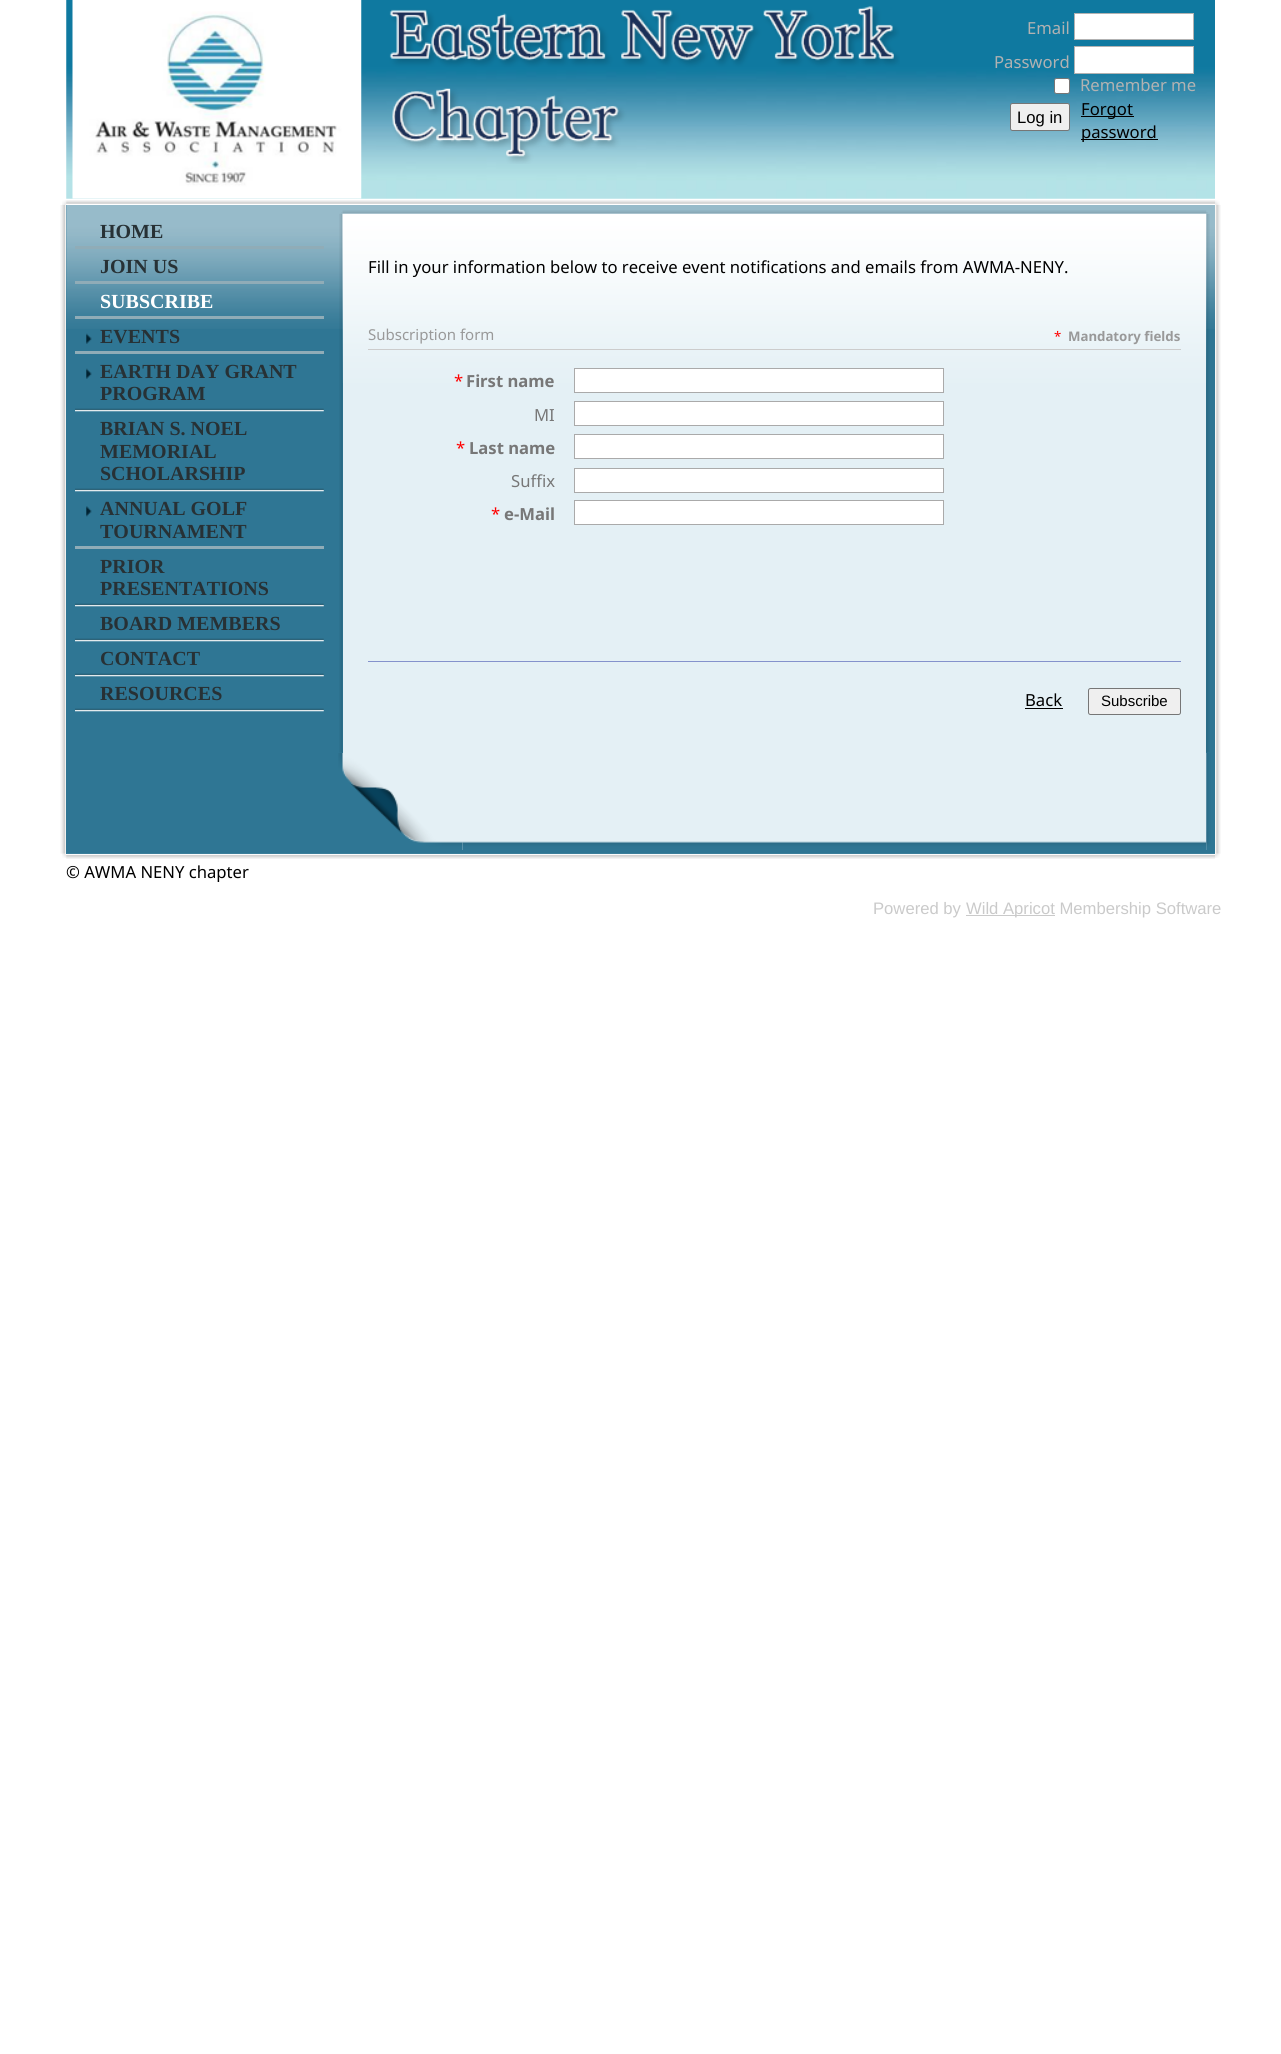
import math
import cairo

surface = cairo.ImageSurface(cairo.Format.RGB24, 1281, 2054)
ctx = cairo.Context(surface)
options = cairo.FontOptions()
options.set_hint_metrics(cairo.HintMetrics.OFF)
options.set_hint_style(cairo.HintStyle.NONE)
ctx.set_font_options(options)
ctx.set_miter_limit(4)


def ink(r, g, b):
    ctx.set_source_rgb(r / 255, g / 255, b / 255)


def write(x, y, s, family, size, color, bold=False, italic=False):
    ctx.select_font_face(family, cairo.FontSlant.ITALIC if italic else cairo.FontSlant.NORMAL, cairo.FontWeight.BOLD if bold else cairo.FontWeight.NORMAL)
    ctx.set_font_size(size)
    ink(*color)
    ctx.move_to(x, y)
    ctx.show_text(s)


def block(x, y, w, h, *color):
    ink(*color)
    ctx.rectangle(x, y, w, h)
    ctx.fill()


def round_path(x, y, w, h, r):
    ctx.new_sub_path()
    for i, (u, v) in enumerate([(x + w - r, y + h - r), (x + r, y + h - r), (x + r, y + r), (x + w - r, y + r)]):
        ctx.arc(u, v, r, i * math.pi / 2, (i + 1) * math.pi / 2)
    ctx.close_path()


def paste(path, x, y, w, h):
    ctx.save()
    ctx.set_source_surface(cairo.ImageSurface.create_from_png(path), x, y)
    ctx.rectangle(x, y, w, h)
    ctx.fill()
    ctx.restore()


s1 = dict(family="Noto Sans", size=16.65, color=(178, 178, 178))
s2 = dict(family="Liberation Sans", size=16.65, color=(0, 0, 0))
s3 = dict(family="Noto Sans", size=16.65, color=(0, 0, 0))
s4 = dict(family="Liberation Serif", size=20, color=(39, 49, 53), bold=True)
s5 = dict(family="Liberation Serif", size=20, color=(255, 255, 255), bold=True)
s6 = dict(family="Noto Sans", size=15, color=(153, 153, 153))
s7 = dict(family="Noto Sans", size=13.25, color=(255, 0, 0))
s8 = dict(family="Noto Sans", size=13.25, color=(153, 153, 153), bold=True)
s9 = dict(family="Noto Sans", size=16.65, color=(255, 0, 0))
s10 = dict(family="Noto Sans", size=16.65, color=(119, 119, 119), bold=True)
s11 = dict(family="Noto Sans", size=16.65, color=(119, 119, 119))
s12 = dict(family="Liberation Sans", size=15, color=(0, 0, 0))
s13 = dict(family="Liberation Sans", size=16.65, color=(202, 202, 202))

ink(255, 255, 255)
ctx.paint()
paste("pic1.png", 66, 0, 1149, 199)
paste("pic2.png", 72, 0, 290, 199)
paste("pic3.png", 389, 6, 511, 158)
paste("pic4.png", 60, 205, 6, 649)
paste("pic5.png", 1215, 205, 6, 649)
block(66, 205, 1149, 649, 47, 118, 148)
paste("pic6.png", 66, 205, 1149, 124)
write(1027, 34, "Email", **s1)
ink(255, 255, 255)
ctx.rectangle(1074.5, 13.5, 119, 26)
ctx.fill_preserve()
ink(178, 178, 178)
ctx.set_line_width(1)
ctx.stroke()
write(994, 68, "Password", **s1)
ink(255, 255, 255)
ctx.rectangle(1074.5, 46.5, 119, 27)
ctx.fill_preserve()
ink(178, 178, 178)
ctx.stroke()
ink(255, 255, 255)
round_path(1054.5, 78.5, 15, 15, 2)
ctx.fill_preserve()
ink(118, 118, 118)
ctx.stroke()
write(1080, 91, "Remember me", **s1)
ink(239, 239, 239)
round_path(1010.5, 103.5, 59, 27, 2)
ctx.fill_preserve()
ink(118, 118, 118)
ctx.stroke()
write(1017, 123, "Log in", **s2)
block(1081, 116, 53, 1, 0, 0, 0)
write(1081, 115, "Forgot", **s3)
block(1081, 139, 77, 1, 0, 0, 0)
write(1081, 138, "password", **s3)
block(75, 246, 249, 3, 144, 172, 183)
write(100, 238, "HOME", **s4)
block(75, 281, 249, 3, 144, 172, 183)
write(100, 273, "JOIN US", **s4)
block(75, 316, 249, 3, 144, 172, 183)
write(100, 308, "SUBSCRIBE", **s5)
block(75, 351, 249, 3, 144, 172, 183)
paste("pic7.png", 86, 333, 6, 11)
write(100, 343, "EVENTS", **s4)
paste("pic8.png", 75, 408, 249, 4)
paste("pic7.png", 86, 368, 6, 11)
write(100, 378, "EARTH DAY GRANT", **s4)
write(100, 400, "PROGRAM", **s4)
paste("pic8.png", 75, 488, 249, 4)
write(100, 435, "BRIAN S. NOEL", **s4)
write(100, 458, "MEMORIAL", **s4)
write(100, 480, "SCHOLARSHIP", **s4)
block(75, 546, 249, 3, 144, 172, 183)
paste("pic9.png", 86, 506, 6, 11)
write(100, 515, "ANNUAL GOLF", **s4)
write(100, 538, "TOURNAMENT", **s4)
paste("pic8.png", 75, 603, 249, 4)
write(100, 573, "PRIOR", **s4)
write(100, 595, "PRESENTATIONS", **s4)
paste("pic8.png", 75, 638, 249, 4)
write(100, 630, "BOARD MEMBERS", **s4)
paste("pic8.png", 75, 673, 249, 4)
write(100, 665, "CONTACT", **s4)
paste("pic8.png", 75, 708, 249, 4)
write(100, 700, "RESOURCES", **s4)
block(341, 212, 1, 1, 146, 181, 196)
block(1206, 212, 2, 1, 146, 181, 196)
paste("pic11.png", 339, 213, 4, 540)
paste("pic12.png", 1206, 213, 4, 540)
paste("pic10.png", 342, 210, 865, 4)
block(343, 217, 863, 536, 228, 240, 245)
paste("pic13.png", 342, 213, 865, 170)
write(368, 273, "Fill in your information below to receive event notifications and emails from AWMA-NENY.", **s3)
block(368, 349, 813, 1, 204, 204, 204)
write(368, 340, "Subscription form", **s6)
write(1054, 341, "*", **s7)
write(1068, 341, "Mandatory fields", **s8)
write(454, 387, "*", **s9)
write(466, 387, "First name", **s10)
ink(255, 255, 255)
ctx.rectangle(574.5, 368.5, 369, 24)
ctx.fill_preserve()
ink(170, 170, 170)
ctx.stroke()
write(534, 421, "MI", **s11)
ink(255, 255, 255)
ctx.rectangle(574.5, 401.5, 369, 24)
ctx.fill_preserve()
ink(170, 170, 170)
ctx.stroke()
write(456, 454, "*", **s9)
write(469, 454, "Last name", **s10)
ink(255, 255, 255)
ctx.rectangle(574.5, 434.5, 369, 24)
ctx.fill_preserve()
ink(170, 170, 170)
ctx.stroke()
write(511, 487, "Suffix", **s11)
ink(255, 255, 255)
ctx.rectangle(574.5, 468.5, 369, 24)
ctx.fill_preserve()
ink(170, 170, 170)
ctx.stroke()
write(491, 520, "*", **s9)
write(504, 520, "e-Mail", **s10)
ink(255, 255, 255)
ctx.rectangle(574.5, 500.5, 369, 24)
ctx.fill_preserve()
ink(170, 170, 170)
ctx.stroke()
block(368, 661, 813, 1, 132, 146, 204)
write(1025, 706, "Back", **s3)
block(1025, 708, 38, 1, 0, 0, 0)
ink(239, 239, 239)
round_path(1088.5, 688.5, 92, 26, 2)
ctx.fill_preserve()
ink(118, 118, 118)
ctx.stroke()
write(1101, 706, "Subscribe", **s12)
block(342, 753, 865, 97, 228, 240, 245)
paste("pic14.png", 338, 753, 125, 97)
paste("pic15.png", 1206, 753, 5, 97)
paste("pic16.png", 462, 841, 745, 9)
paste("pic17.png", 62, 200, 5, 5)
paste("pic18.png", 1215, 200, 5, 5)
paste("pic19.png", 66, 200, 1149, 4)
paste("pic20.png", 62, 854, 5, 4)
paste("pic21.png", 1215, 854, 5, 4)
paste("pic22.png", 66, 853, 1149, 6)
write(66, 878, "© AWMA NENY chapter", **s3)
write(873, 914, "Powered by", **s13)
block(966, 915, 89, 1, 202, 202, 202)
write(966, 914, "Wild Apricot Membership Software", **s13)
surface.write_to_png("screenshot.png")
